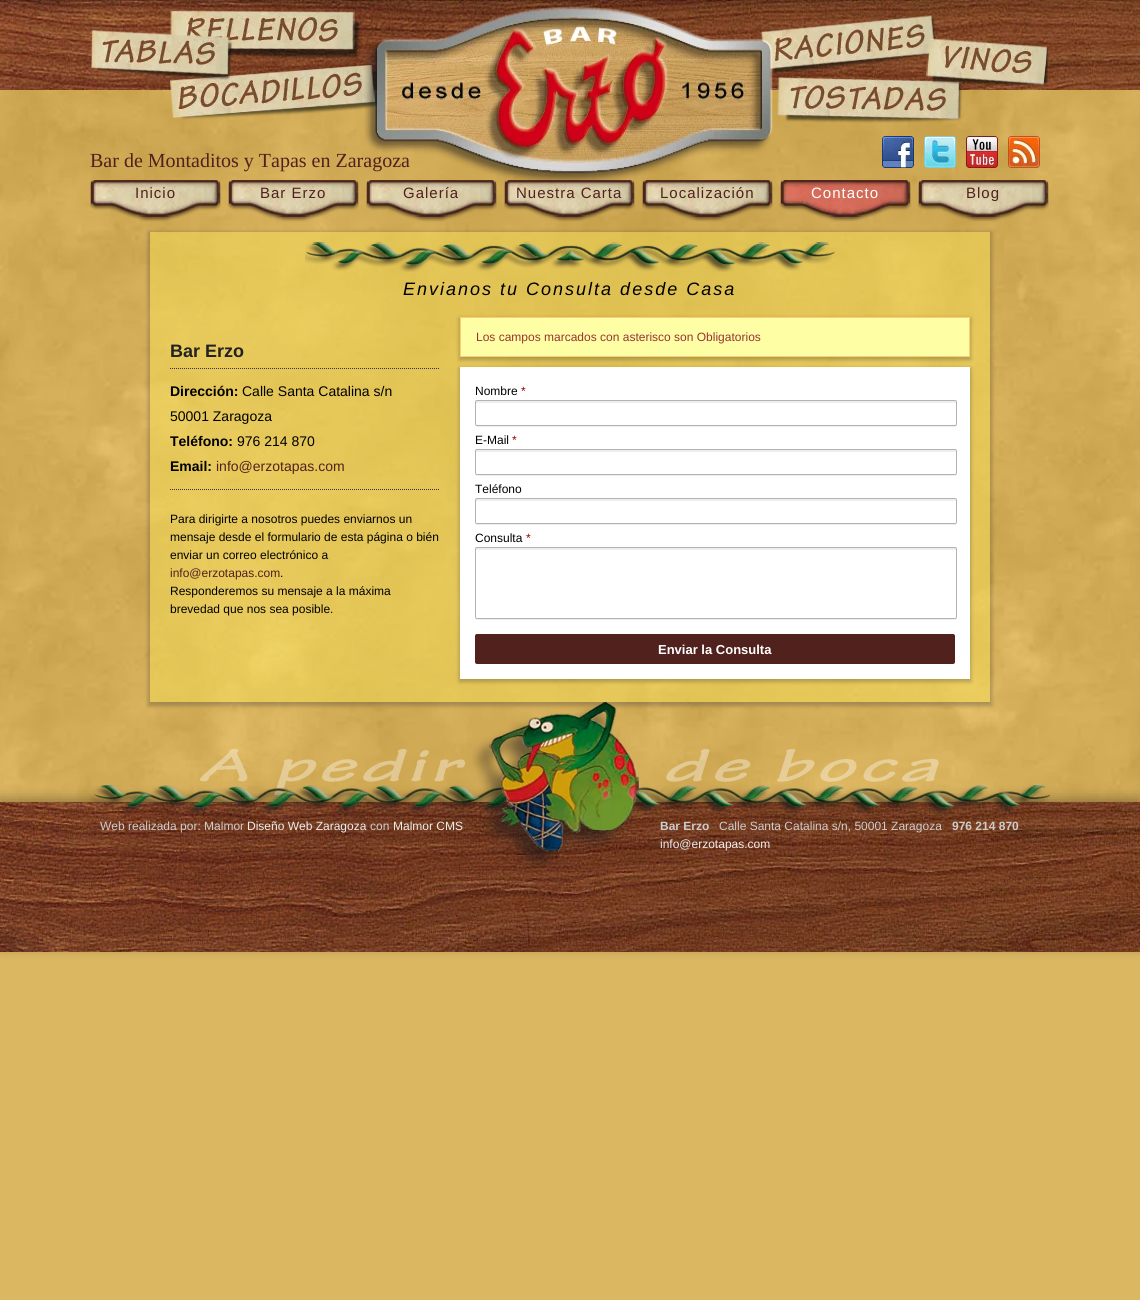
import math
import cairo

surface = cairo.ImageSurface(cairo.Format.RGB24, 1140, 1300)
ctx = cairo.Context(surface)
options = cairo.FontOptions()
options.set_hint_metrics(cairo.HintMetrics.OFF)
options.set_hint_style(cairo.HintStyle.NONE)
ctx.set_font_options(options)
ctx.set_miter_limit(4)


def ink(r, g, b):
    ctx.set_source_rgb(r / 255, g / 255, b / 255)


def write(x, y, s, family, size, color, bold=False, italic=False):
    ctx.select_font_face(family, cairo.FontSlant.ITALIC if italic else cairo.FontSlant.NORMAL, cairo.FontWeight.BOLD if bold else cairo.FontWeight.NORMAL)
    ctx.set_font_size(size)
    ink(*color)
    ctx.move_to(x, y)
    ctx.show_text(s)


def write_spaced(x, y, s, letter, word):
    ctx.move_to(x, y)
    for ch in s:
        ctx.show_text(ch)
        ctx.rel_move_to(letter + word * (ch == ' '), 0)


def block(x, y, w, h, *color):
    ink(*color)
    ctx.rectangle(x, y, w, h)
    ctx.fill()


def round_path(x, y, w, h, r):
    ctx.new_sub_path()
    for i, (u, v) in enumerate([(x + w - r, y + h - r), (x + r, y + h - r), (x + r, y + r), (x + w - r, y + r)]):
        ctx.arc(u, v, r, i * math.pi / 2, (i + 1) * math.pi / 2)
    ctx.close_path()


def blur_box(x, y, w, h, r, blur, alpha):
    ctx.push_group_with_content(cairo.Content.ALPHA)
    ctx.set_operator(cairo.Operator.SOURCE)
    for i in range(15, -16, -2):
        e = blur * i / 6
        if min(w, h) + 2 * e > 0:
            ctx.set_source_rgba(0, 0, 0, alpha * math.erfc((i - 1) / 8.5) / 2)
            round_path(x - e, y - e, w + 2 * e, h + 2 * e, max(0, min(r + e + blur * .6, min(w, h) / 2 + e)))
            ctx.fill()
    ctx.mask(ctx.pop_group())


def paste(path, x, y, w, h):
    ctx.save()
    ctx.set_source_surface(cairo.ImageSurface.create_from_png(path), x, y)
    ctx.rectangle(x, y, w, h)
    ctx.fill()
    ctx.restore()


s1 = dict(family="Liberation Serif", size=20, color=(80, 33, 29))
s2 = dict(family="Liberation Sans", size=18, color=(34, 34, 34), bold=True)
s3 = dict(family="Liberation Sans", size=14, color=(0, 0, 0), bold=True)
s4 = dict(family="Liberation Sans", size=14, color=(0, 0, 0))
s5 = dict(family="Liberation Sans", size=14, color=(80, 33, 29))
s6 = dict(family="Liberation Sans", size=12, color=(0, 0, 0))
s7 = dict(family="Liberation Sans", size=12, color=(80, 33, 29))
s8 = dict(family="Liberation Sans", size=12, color=(153, 51, 51))
s9 = dict(family="Liberation Sans", size=12, color=(153, 0, 0))
s10 = dict(family="Liberation Sans", size=13, color=(255, 255, 255), bold=True)
s11 = dict(family="Liberation Sans", size=12, color=(204, 204, 204))
s12 = dict(family="Liberation Sans", size=12, color=(237, 237, 237))
s13 = dict(family="Liberation Sans", size=12, color=(204, 204, 204), bold=True)

ink(219, 183, 98)
ctx.paint()
paste("pic1.png", 0, 90, 1140, 712)
paste("pic2.png", 0, 0, 1140, 90)
paste("pic3.png", 91, 10, 958, 113)
write(90, 167, "Bar de Montaditos y Tapas en Zaragoza", **s1)
paste("pic4.png", 882, 136, 32, 32)
paste("pic5.png", 924, 136, 32, 32)
paste("pic6.png", 966, 136, 32, 32)
paste("pic7.png", 1008, 136, 32, 32)
paste("pic8.png", 364, 7, 409, 178)
paste("pic9.png", 90, 180, 131, 42)
ctx.select_font_face("Liberation Sans")
ctx.set_font_size(15)
write_spaced(135, 198, "Inicio", 1, 0)
paste("pic10.png", 228, 180, 131, 42)
write_spaced(260, 198, "Bar Erzo", 1, 0)
paste("pic11.png", 366, 180, 131, 42)
write_spaced(403, 198, "Galería", 1, 0)
paste("pic12.png", 504, 180, 131, 42)
write_spaced(516, 198, "Nuestra Carta", 1, 0)
paste("pic13.png", 642, 180, 131, 42)
write_spaced(660, 198, "Localización", 1, 0)
paste("pic14.png", 780, 180, 131, 42)
ink(255, 255, 255)
write_spaced(811, 198, "Contacto", 1, 0)
paste("pic15.png", 918, 180, 131, 42)
ink(80, 33, 29)
write_spaced(966, 198, "Blog", 1, 0)
ctx.save()
ctx.set_fill_rule(cairo.FillRule.EVEN_ODD)
ctx.new_path()
ctx.move_to(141, 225)
ctx.line_to(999, 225)
ctx.line_to(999, 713)
ctx.line_to(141, 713)
ctx.close_path()
ctx.move_to(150, 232)
ctx.line_to(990, 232)
ctx.line_to(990, 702)
ctx.line_to(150, 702)
ctx.close_path()
ctx.clip()
ink(51, 51, 51)
blur_box(148, 232, 844, 474, 0, 2, 0.3)
ctx.restore()
ctx.set_source_rgba(0.961, 0.878, 0.345, 0.5)
ctx.rectangle(150, 232, 840, 470)
ctx.fill()
paste("pic16.png", 305, 242, 530, 30)
ctx.select_font_face("Liberation Sans", cairo.FontSlant.ITALIC)
ctx.set_font_size(18)
ink(0, 0, 0)
write_spaced(403, 295, "Envianos tu Consulta desde Casa", 2, 0)
ctx.new_path()
ctx.move_to(170, 489.5)
ctx.line_to(440, 489.5)
ink(51, 51, 51)
ctx.set_line_width(1)
ctx.set_dash([1, 1])
ctx.stroke()
ctx.new_path()
ctx.move_to(170, 368.5)
ctx.line_to(440, 368.5)
ctx.stroke()
write(170, 357, "Bar Erzo", **s2)
write(170, 396, "Dirección:", **s3)
write(242, 396, "Calle Santa Catalina s/n", **s4)
write(170, 421, "50001 Zaragoza", **s4)
write(170, 446, "Teléfono:", **s3)
write(237, 446, "976 214 870", **s4)
write(170, 471, "Email:", **s3)
write(216, 471, "info@erzotapas.com", **s5)
write(170, 523, "Para dirigirte a nosotros puedes enviarnos un", **s6)
write(170, 541, "mensaje desde el formulario de esta página o bién", **s6)
write(170, 559, "enviar un correo electrónico a", **s6)
write(170, 577, "info@erzotapas.com", **s7)
write(280, 577, ".", **s6)
write(170, 595, "Responderemos su mensaje a la máxima", **s6)
write(170, 613, "brevedad que nos sea posible.", **s6)
ink(51, 51, 51)
blur_box(459, 318, 512, 42, 0, 2, 0.3)
ink(254, 254, 165)
ctx.rectangle(460.5, 317.5, 509, 39)
ctx.fill_preserve()
ink(255, 205, 119)
ctx.set_dash([])
ctx.stroke()
write(476, 341, "Los campos marcados con asterisco son Obligatorios", **s8)
ink(51, 51, 51)
blur_box(459, 368, 512, 314, 0, 2, 0.3)
block(460, 367, 510, 312, 255, 255, 255)
write(475, 395, "Nombre", **s6)
write(521, 395, "*", **s9)
ink(238, 238, 238)
ctx.new_path()
ctx.move_to(475, 424)
ctx.line_to(475, 426)
ctx.line_to(477, 427)
ctx.line_to(956, 427)
ctx.curve_to(957, 426, 957, 425, 957, 424)
ctx.curve_to(957, 425, 956, 426, 955, 426)
ctx.line_to(477, 426)
ctx.curve_to(476, 426, 475, 425, 475, 424)
ctx.close_path()
ctx.fill()
ink(255, 255, 255)
round_path(475, 400, 482, 26, 2)
ctx.fill()
ink(238, 238, 238)
ctx.set_fill_rule(cairo.FillRule.EVEN_ODD)
ctx.new_path()
ctx.move_to(477, 403)
ctx.line_to(956, 403)
ctx.line_to(956, 402)
ctx.line_to(955, 401)
ctx.line_to(476, 401)
ctx.line_to(476, 404)
ctx.close_path()
ctx.move_to(476, 425)
ctx.line_to(476, 421)
ctx.close_path()
ctx.fill()
round_path(475.5, 400.5, 481, 25, 1.5)
ink(178, 178, 178)
ctx.stroke()
write(475, 444, "E-Mail", **s6)
write(512, 444, "*", **s9)
ink(238, 238, 238)
ctx.set_fill_rule(cairo.FillRule.WINDING)
ctx.new_path()
ctx.move_to(475, 473)
ctx.line_to(475, 475)
ctx.line_to(477, 476)
ctx.line_to(956, 476)
ctx.curve_to(957, 475, 957, 474, 957, 473)
ctx.curve_to(957, 474, 956, 475, 955, 475)
ctx.line_to(477, 475)
ctx.curve_to(476, 475, 475, 474, 475, 473)
ctx.close_path()
ctx.fill()
ink(255, 255, 255)
round_path(475, 449, 482, 26, 2)
ctx.fill()
ink(238, 238, 238)
ctx.set_fill_rule(cairo.FillRule.EVEN_ODD)
ctx.new_path()
ctx.move_to(477, 452)
ctx.line_to(956, 452)
ctx.line_to(956, 451)
ctx.line_to(955, 450)
ctx.line_to(476, 450)
ctx.line_to(476, 453)
ctx.close_path()
ctx.move_to(476, 474)
ctx.line_to(476, 470)
ctx.close_path()
ctx.fill()
round_path(475.5, 449.5, 481, 25, 1.5)
ink(178, 178, 178)
ctx.stroke()
write(475, 493, "Teléfono", **s6)
ink(238, 238, 238)
ctx.set_fill_rule(cairo.FillRule.WINDING)
ctx.new_path()
ctx.move_to(475, 522)
ctx.line_to(475, 524)
ctx.line_to(477, 525)
ctx.line_to(956, 525)
ctx.curve_to(957, 524, 957, 523, 957, 522)
ctx.curve_to(957, 523, 956, 524, 955, 524)
ctx.line_to(477, 524)
ctx.curve_to(476, 524, 475, 523, 475, 522)
ctx.close_path()
ctx.fill()
ink(255, 255, 255)
round_path(475, 498, 482, 26, 2)
ctx.fill()
ink(238, 238, 238)
ctx.set_fill_rule(cairo.FillRule.EVEN_ODD)
ctx.new_path()
ctx.move_to(477, 501)
ctx.line_to(956, 501)
ctx.line_to(956, 500)
ctx.line_to(955, 499)
ctx.line_to(476, 499)
ctx.line_to(476, 502)
ctx.close_path()
ctx.move_to(476, 523)
ctx.line_to(476, 519)
ctx.close_path()
ctx.fill()
round_path(475.5, 498.5, 481, 25, 1.5)
ink(178, 178, 178)
ctx.stroke()
write(475, 542, "Consulta", **s6)
write(526, 542, "*", **s9)
ink(238, 238, 238)
ctx.set_fill_rule(cairo.FillRule.WINDING)
ctx.new_path()
ctx.move_to(475, 617)
ctx.line_to(475, 619)
ctx.line_to(477, 620)
ctx.line_to(956, 620)
ctx.curve_to(957, 619, 957, 618, 957, 617)
ctx.curve_to(957, 618, 956, 619, 955, 619)
ctx.line_to(477, 619)
ctx.curve_to(476, 619, 475, 618, 475, 617)
ctx.close_path()
ctx.fill()
ink(255, 255, 255)
round_path(475, 547, 482, 72, 2)
ctx.fill()
ink(238, 238, 238)
ctx.new_path()
ctx.move_to(477, 550)
ctx.line_to(955, 550)
ctx.curve_to(956, 550, 956, 550, 956, 551)
ctx.line_to(956, 549)
ctx.curve_to(956, 548, 956, 548, 955, 548)
ctx.line_to(477, 548)
ctx.curve_to(476, 548, 476, 548, 476, 549)
ctx.line_to(476, 551)
ctx.curve_to(476, 550, 476, 550, 477, 550)
ctx.close_path()
ctx.fill()
round_path(475.5, 547.5, 481, 71, 1.5)
ink(178, 178, 178)
ctx.stroke()
ink(80, 33, 29)
round_path(475, 634, 480, 30, 2)
ctx.fill()
write(658, 654, "Enviar la Consulta", **s10)
ink(0, 0, 0)
blur_box(0, 798, 1140, 150, 0, 6, 0.3)
paste("pic18.png", 0, 802, 1140, 150)
paste("pic17.png", 90, 702, 960, 165)
write(100, 830, "Web realizada por: Malmor", **s11)
write(247, 830, "Diseño Web Zaragoza", **s12)
write(370, 830, "con", **s11)
write(393, 830, "Malmor CMS", **s12)
write(660, 830, "Bar Erzo", **s13)
write(719, 830, "Calle Santa Catalina s/n, 50001 Zaragoza", **s11)
write(952, 830, "976 214 870", **s13)
write(660, 848, "info@erzotapas.com", **s12)
surface.write_to_png("screenshot.png")
